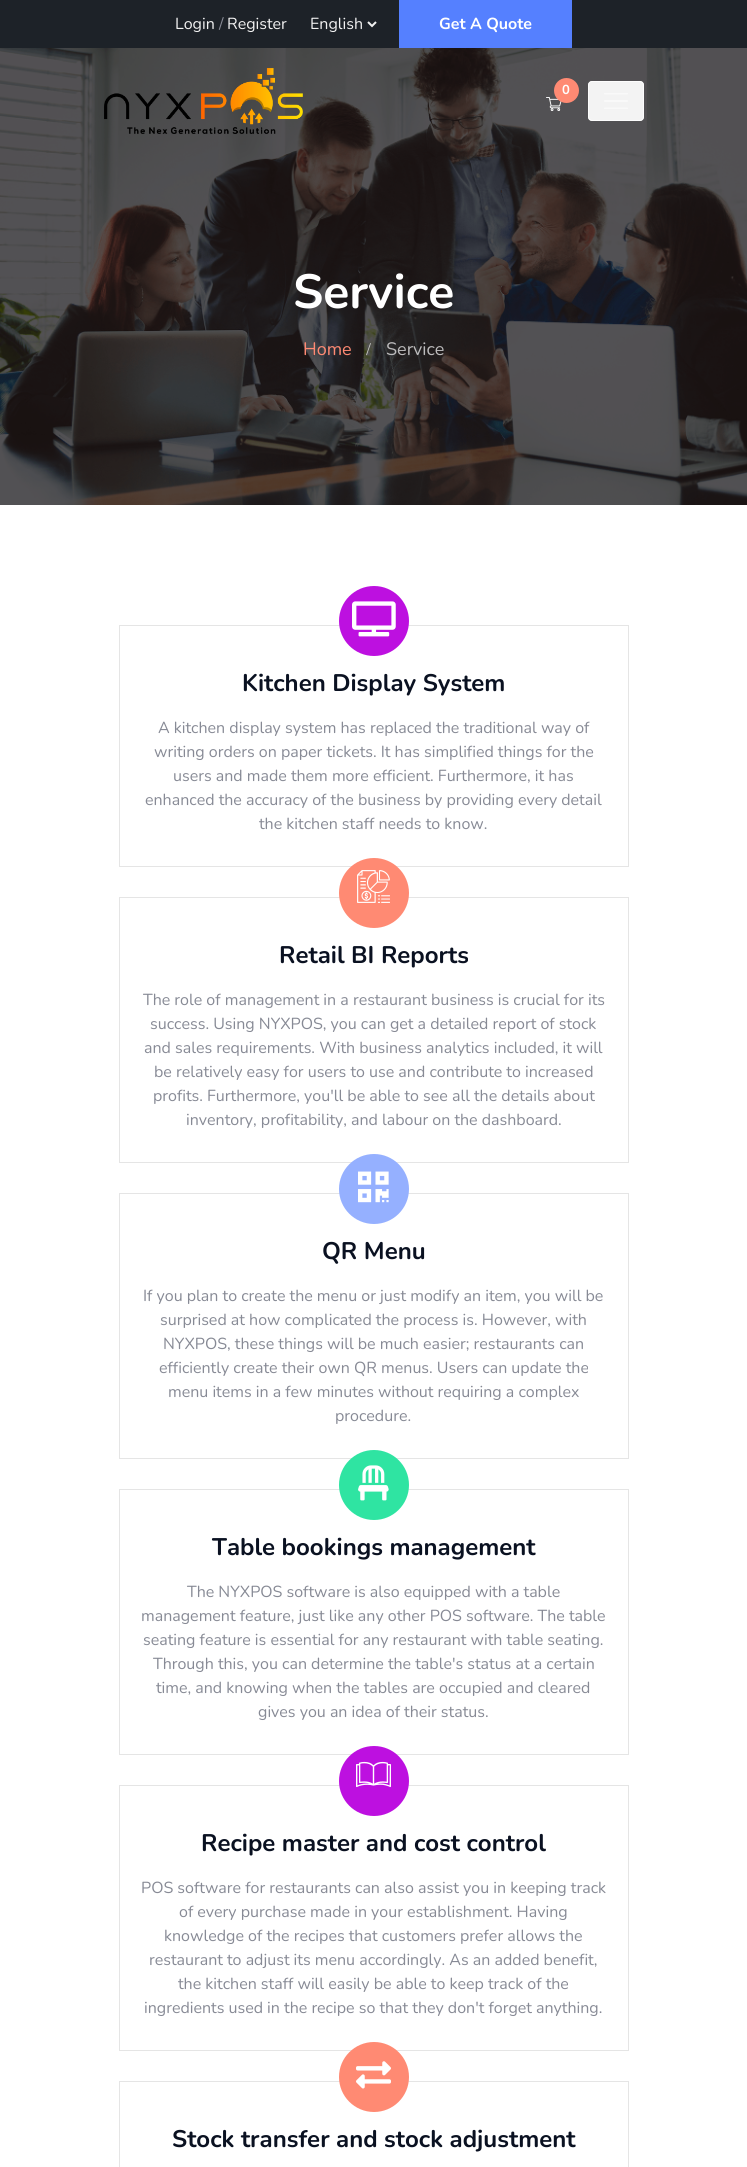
import math
import cairo

surface = cairo.ImageSurface(cairo.Format.RGB24, 747, 2167)
ctx = cairo.Context(surface)
options = cairo.FontOptions()
options.set_hint_metrics(cairo.HintMetrics.OFF)
options.set_hint_style(cairo.HintStyle.NONE)
ctx.set_font_options(options)
ctx.set_miter_limit(4)


def ink(r, g, b):
    ctx.set_source_rgb(r / 255, g / 255, b / 255)


def write(x, y, s, family, size, color, bold=False, italic=False):
    ctx.select_font_face(family, cairo.FontSlant.ITALIC if italic else cairo.FontSlant.NORMAL, cairo.FontWeight.BOLD if bold else cairo.FontWeight.NORMAL)
    ctx.set_font_size(size)
    ink(*color)
    ctx.move_to(x, y)
    ctx.show_text(s)


def block(x, y, w, h, *color):
    ink(*color)
    ctx.rectangle(x, y, w, h)
    ctx.fill()


def round_path(x, y, w, h, r):
    ctx.new_sub_path()
    for i, (u, v) in enumerate([(x + w - r, y + h - r), (x + r, y + h - r), (x + r, y + r), (x + w - r, y + r)]):
        ctx.arc(u, v, r, i * math.pi / 2, (i + 1) * math.pi / 2)
    ctx.close_path()


def paste(path, x, y, w, h):
    ctx.save()
    ctx.set_source_surface(cairo.ImageSurface.create_from_png(path), x, y)
    ctx.rectangle(x, y, w, h)
    ctx.fill()
    ctx.restore()


s1 = dict(family="Nunito", size=16, color=(242, 242, 242))
s2 = dict(family="Nunito", size=16, color=(135, 138, 149))
s3 = dict(family="Nunito", size=16, color=(255, 255, 255), bold=True)
s4 = dict(family="Nunito", size=13, color=(255, 255, 255), bold=True)
s5 = dict(family="Nunito", size=48, color=(255, 255, 255), bold=True)
s6 = dict(family="Nunito", size=18, color=(255, 138, 115))
s7 = dict(family="Liberation Serif", size=18, color=(201, 202, 198))
s8 = dict(family="Nunito", size=18, color=(189, 188, 189))
s9 = dict(family="Nunito", size=24, color=(10, 17, 33), bold=True)

ink(255, 255, 255)
ctx.paint()
block(0, 0, 747, 48, 29, 34, 40)
write(175, 29, "Login", **s1)
write(219, 29, "/", **s2)
write(227, 29, "Register", **s1)
ctx.new_path()
ctx.move_to(368, 22)
ctx.line_to(372, 26)
ctx.line_to(376, 22)
ctx.stroke()
write(310, 29, "English", **s1)
block(399, 0, 173, 48, 85, 128, 255)
write(439, 29, "Get A Quote", **s3)
paste("pic4.png", 0, 48, 747, 457)
paste("pic1.png", 104, 68, 199, 66)
paste("pic2.png", 546, 97, 16, 14)
ink(255, 138, 115)
ctx.arc(566.5, 90.5, 12.5, 0, 2 * math.pi)
ctx.fill()
write(562, 94, "0", **s4)
ink(243, 243, 243)
round_path(588, 81, 56, 40, 4)
ctx.fill()
round_path(588.5, 81.5, 55, 39, 3.5)
ctx.set_source_rgba(1, 1, 1, 0.8)
ctx.set_line_width(1)
ctx.stroke()
paste("pic3.png", 604, 93, 24, 16)
write(293, 308, "Service", **s5)
write(303, 355, "Home", **s6)
write(366, 355, "/", **s7)
write(386, 355, "Service", **s8)
ctx.rectangle(119.5, 625.5, 509, 241)
ink(229, 229, 229)
ctx.stroke()
ink(189, 16, 224)
ctx.arc(374, 621, 35, 0, 2 * math.pi)
ctx.fill()
paste("pic5.png", 352, 601, 44, 36)
write(242, 691, "Kitchen Display System", **s9)
write(158, 733, "A kitchen display system has replaced the traditional way of", **s2)
write(154, 757, "writing orders on paper tickets. It has simplified things for the", **s2)
write(173, 781, "users and made them more efficient. Furthermore, it has", **s2)
write(145, 805, "enhanced the accuracy of the business by providing every detail", **s2)
write(259, 829, "the kitchen staff needs to know.", **s2)
ctx.rectangle(119.5, 897.5, 509, 265)
ink(229, 229, 229)
ctx.stroke()
ink(255, 138, 115)
ctx.arc(374, 893, 35, 0, 2 * math.pi)
ctx.fill()
paste("pic6.png", 357, 870, 33, 33)
write(279, 963, "Retail BI Reports", **s9)
write(143, 1005, "The role of management in a restaurant business is crucial for its", **s2)
write(150, 1029, "success. Using NYXPOS, you can get a detailed report of stock", **s2)
write(144, 1053, "and sales requirements. With business analytics included, it will", **s2)
write(154, 1077, "be relatively easy for users to use and contribute to increased", **s2)
write(153, 1101, "profits. Furthermore, you'll be able to see all the details about", **s2)
write(186, 1125, "inventory, profitability, and labour on the dashboard.", **s2)
ctx.rectangle(119.5, 1193.5, 509, 265)
ink(229, 229, 229)
ctx.stroke()
ink(149, 176, 255)
ctx.arc(374, 1189, 35, 0, 2 * math.pi)
ctx.fill()
paste("pic7.png", 358, 1171, 31, 32)
write(322, 1259, "QR Menu", **s9)
write(143, 1301, "If you plan to create the menu or just modify an item, you will be", **s2)
write(160, 1325, "surprised at how complicated the process is. However, with", **s2)
write(163, 1349, "NYXPOS, these things will be much easier; restaurants can", **s2)
write(159, 1373, "efficiently create their own QR menus. Users can update the", **s2)
write(168, 1397, "menu items in a few minutes without requiring a complex", **s2)
write(335, 1421, "procedure.", **s2)
ctx.rectangle(119.5, 1489.5, 509, 265)
ink(229, 229, 229)
ctx.stroke()
ink(47, 228, 162)
ctx.arc(374, 1485, 35, 0, 2 * math.pi)
ctx.fill()
paste("pic8.png", 358, 1465, 31, 36)
write(212, 1555, "Table bookings management", **s9)
write(187, 1597, "The NYXPOS software is also equipped with a table", **s2)
write(141, 1621, "management feature, just like any other POS software. The table", **s2)
write(143, 1645, "seating feature is essential for any restaurant with table seating.", **s2)
write(153, 1669, "Through this, you can determine the table's status at a certain", **s2)
write(156, 1693, "time, and knowing when the tables are occupied and cleared", **s2)
write(258, 1717, "gives you an idea of their status.", **s2)
ctx.rectangle(119.5, 1785.5, 509, 265)
ink(229, 229, 229)
ctx.stroke()
ink(189, 16, 224)
ctx.arc(374, 1781, 35, 0, 2 * math.pi)
ctx.fill()
paste("pic9.png", 356, 1761, 35, 27)
write(201, 1851, "Recipe master and cost control", **s9)
write(141, 1893, "POS software for restaurants can also assist you in keeping track", **s2)
write(179, 1917, "of every purchase made in your establishment. Having", **s2)
write(164, 1941, "knowledge of the recipes that customers prefer allows the", **s2)
write(149, 1965, "restaurant to adjust its menu accordingly. As an added benefit,", **s2)
write(178, 1989, "the kitchen staff will easily be able to keep track of the", **s2)
write(144, 2013, "ingredients used in the recipe so that they don't forget anything.", **s2)
ctx.rectangle(119.5, 2081.5, 509, 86)
ink(229, 229, 229)
ctx.stroke()
ink(255, 138, 115)
ctx.arc(374, 2077, 35, 0, 2 * math.pi)
ctx.fill()
paste("pic10.png", 356, 2061, 35, 28)
write(172, 2147, "Stock transfer and stock adjustment", **s9)
surface.write_to_png("screenshot.png")
